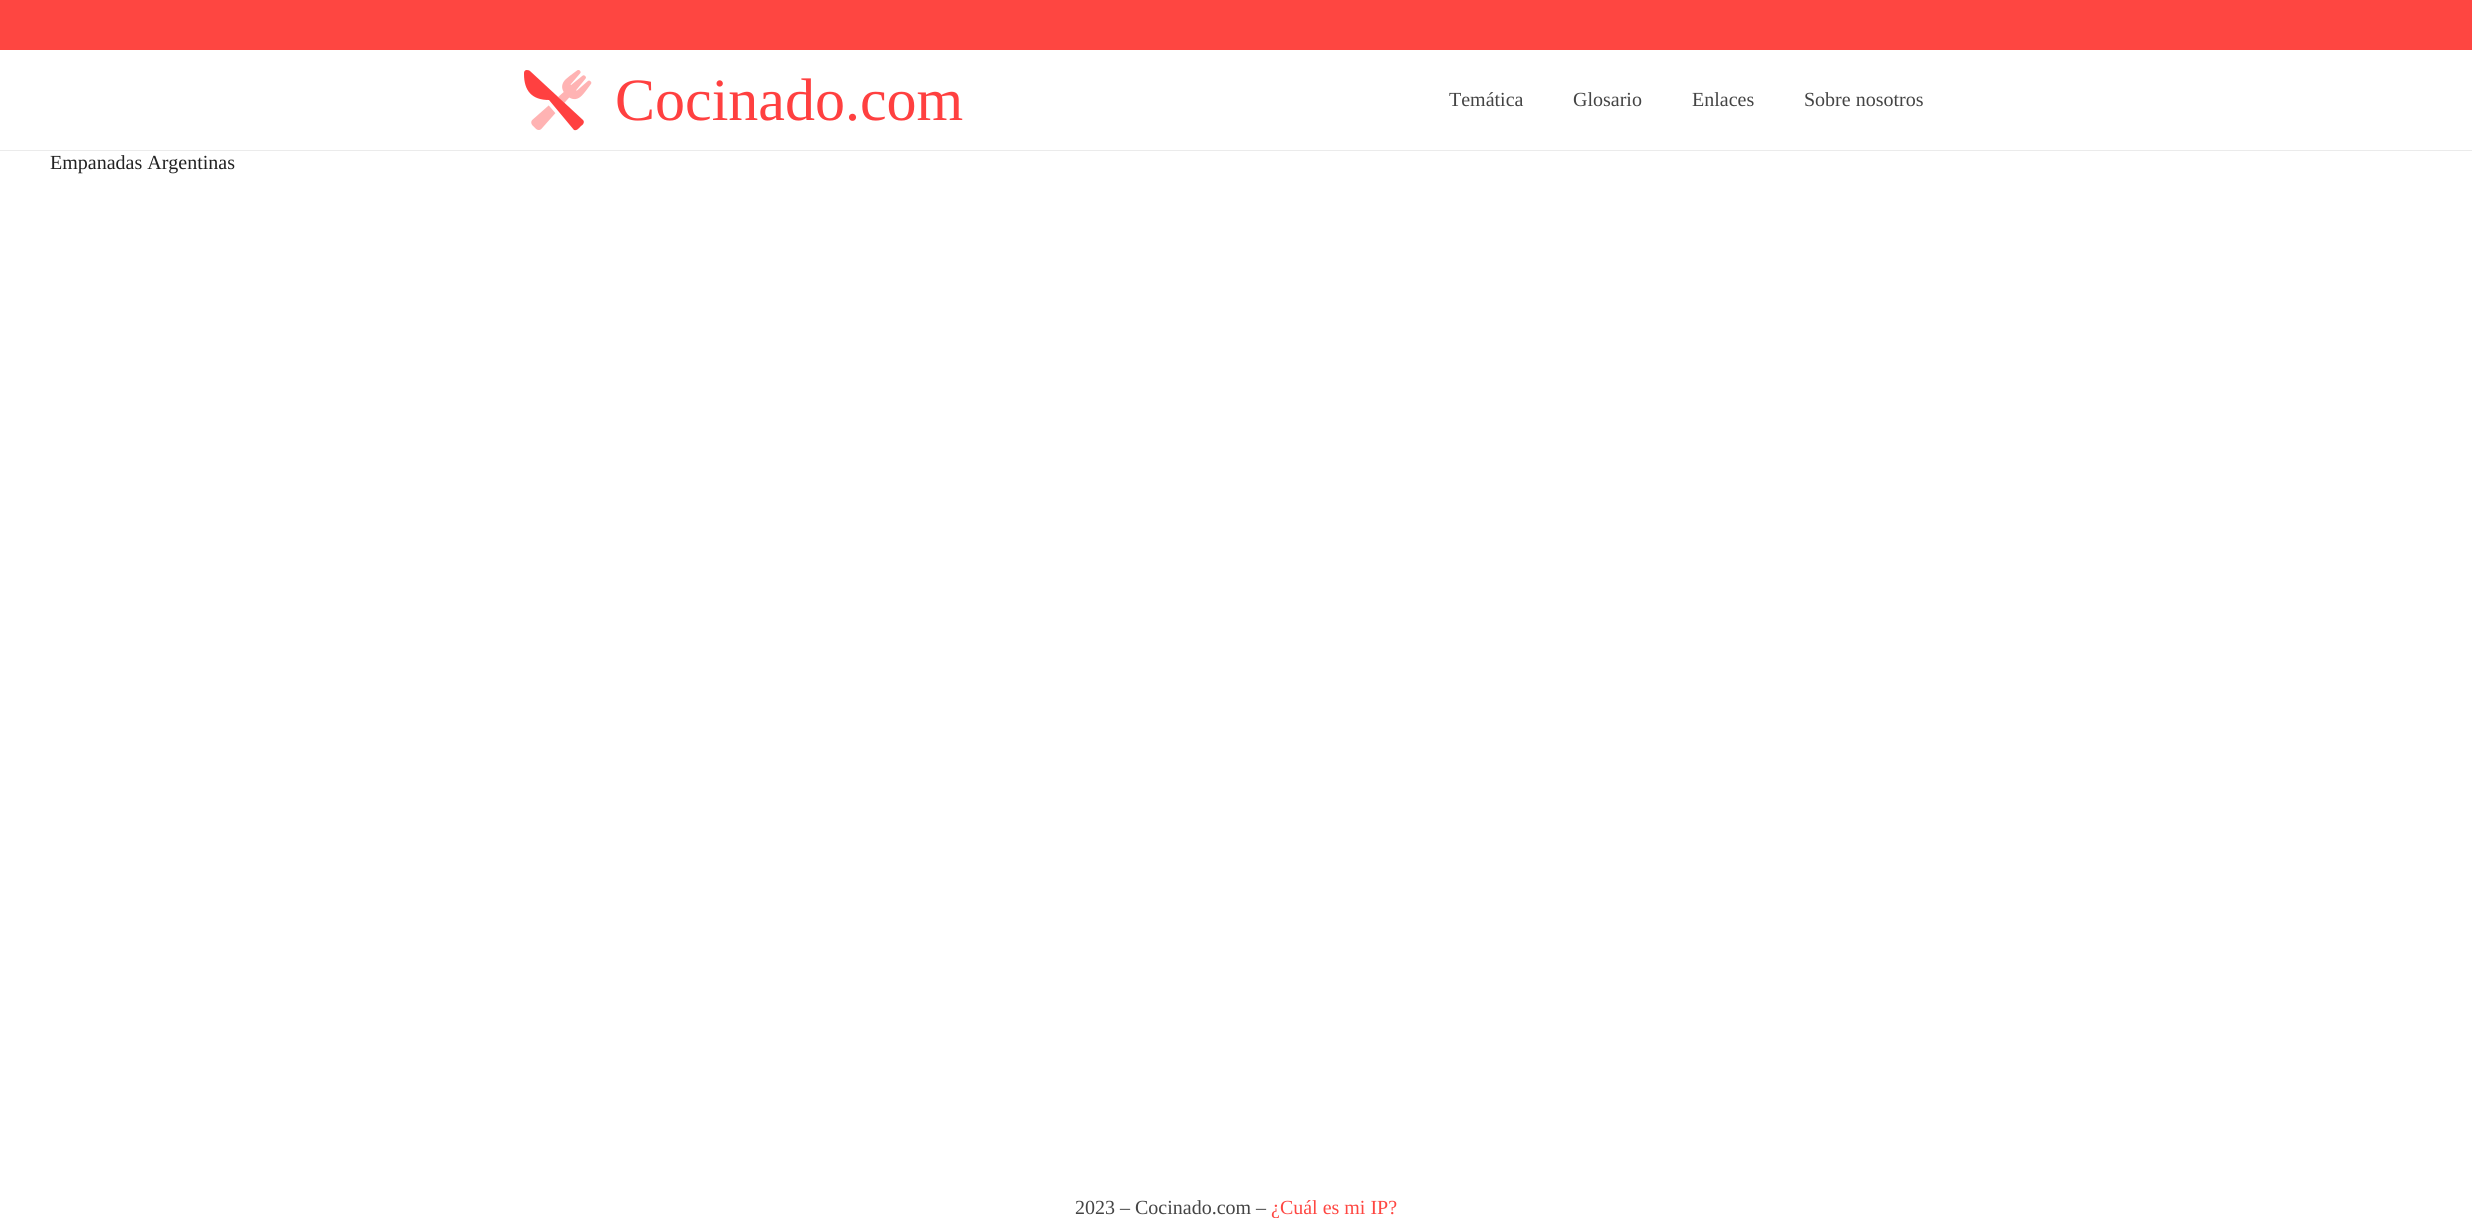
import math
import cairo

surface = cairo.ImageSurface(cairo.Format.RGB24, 2472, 1218)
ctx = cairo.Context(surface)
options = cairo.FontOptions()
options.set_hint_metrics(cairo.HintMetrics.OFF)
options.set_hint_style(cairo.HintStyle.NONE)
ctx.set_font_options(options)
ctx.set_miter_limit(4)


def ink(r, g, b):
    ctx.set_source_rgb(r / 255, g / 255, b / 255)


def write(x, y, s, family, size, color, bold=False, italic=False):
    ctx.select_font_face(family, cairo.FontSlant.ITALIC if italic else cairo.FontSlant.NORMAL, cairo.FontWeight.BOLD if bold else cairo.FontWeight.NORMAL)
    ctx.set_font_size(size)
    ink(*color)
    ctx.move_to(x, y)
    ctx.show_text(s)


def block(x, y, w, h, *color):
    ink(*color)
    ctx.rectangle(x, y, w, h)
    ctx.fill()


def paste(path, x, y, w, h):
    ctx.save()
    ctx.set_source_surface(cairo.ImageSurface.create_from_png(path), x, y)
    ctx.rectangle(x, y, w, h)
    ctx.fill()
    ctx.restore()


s1 = dict(family="Liberation Serif", size=60, color=(255, 64, 64))
s2 = dict(family="Liberation Serif", size=20, color=(68, 68, 68))
s3 = dict(family="Liberation Serif", size=20, color=(34, 34, 34))
s4 = dict(family="Liberation Serif", size=20, color=(254, 70, 65))

ink(255, 255, 255)
ctx.paint()
block(0, 0, 2472, 50, 254, 70, 65)
ink(235, 235, 235)
ctx.new_path()
ctx.move_to(0, 150)
ctx.line_to(0, 151)
ctx.line_to(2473, 151)
ctx.line_to(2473, 51)
ctx.line_to(2472, 51)
ctx.line_to(2472, 150)
ctx.close_path()
ctx.fill()
ink(255, 64, 64)
ctx.new_path()
ctx.move_to(583, 120)
ctx.curve_to(585, 122, 583, 125, 581, 126)
ctx.curve_to(579, 128, 577, 131, 574, 130)
ctx.line_to(549, 100)
ctx.curve_to(532, 100, 524, 91, 524, 74)
ctx.curve_to(524, 72, 524, 71, 526, 70)
ctx.curve_to(527, 70, 529, 70, 530, 71)
ctx.close_path()
ctx.fill()
paste("pic1.png", 531, 70, 61, 60)
write(615, 120, "Cocinado.com", **s1)
write(1449, 106, "Temática", **s2)
write(1573, 106, "Glosario", **s2)
write(1692, 106, "Enlaces", **s2)
write(1804, 106, "Sobre nosotros", **s2)
write(50, 169, "Empanadas Argentinas", **s3)
write(1075, 1214, "2023 – Cocinado.com –", **s2)
write(1271, 1214, "¿Cuál es mi IP?", **s4)
surface.write_to_png("screenshot.png")
